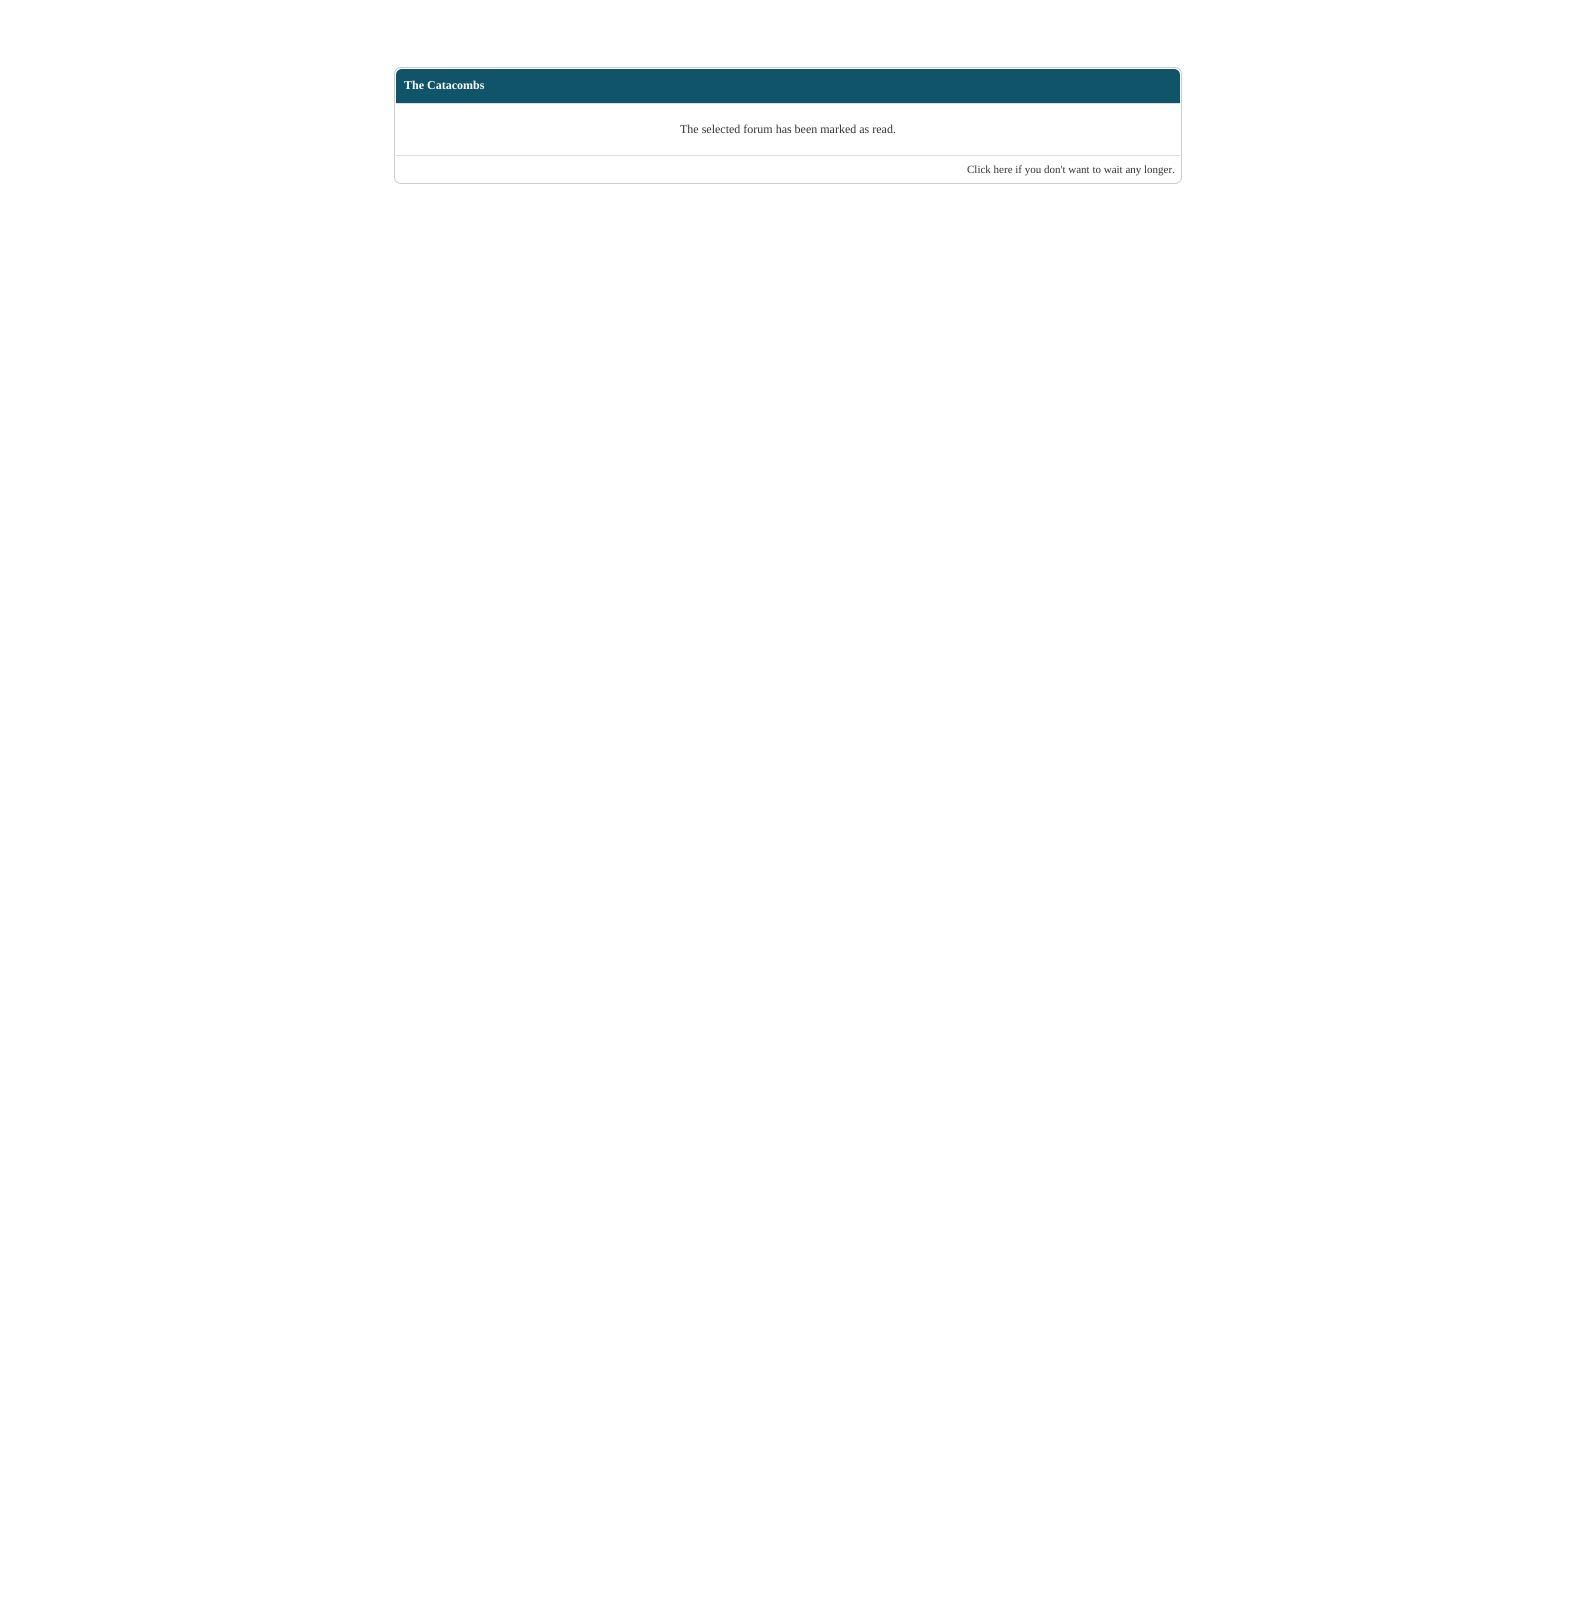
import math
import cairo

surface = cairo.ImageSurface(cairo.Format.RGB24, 1576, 1620)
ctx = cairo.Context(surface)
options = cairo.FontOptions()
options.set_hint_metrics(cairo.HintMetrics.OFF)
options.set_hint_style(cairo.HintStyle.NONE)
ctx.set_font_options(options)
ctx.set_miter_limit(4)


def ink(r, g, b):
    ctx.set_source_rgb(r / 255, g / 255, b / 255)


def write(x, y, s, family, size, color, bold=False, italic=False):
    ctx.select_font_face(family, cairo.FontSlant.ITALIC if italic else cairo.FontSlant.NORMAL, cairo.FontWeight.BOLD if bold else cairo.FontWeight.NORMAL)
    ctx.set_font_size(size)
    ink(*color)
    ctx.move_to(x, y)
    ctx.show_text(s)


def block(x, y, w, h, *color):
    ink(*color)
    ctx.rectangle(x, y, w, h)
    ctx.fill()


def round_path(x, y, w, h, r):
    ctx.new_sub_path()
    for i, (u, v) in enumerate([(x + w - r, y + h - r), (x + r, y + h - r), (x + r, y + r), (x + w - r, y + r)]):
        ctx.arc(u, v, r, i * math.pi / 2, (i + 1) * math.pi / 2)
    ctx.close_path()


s1 = dict(family="Liberation Serif", size=12, color=(255, 255, 255), bold=True)
s2 = dict(family="Liberation Serif", size=12, color=(51, 51, 51))
s3 = dict(family="Liberation Serif", size=11, color=(51, 51, 51))

ink(255, 255, 255)
ctx.paint()
round_path(394.5, 67.5, 787, 116, 6.5)
ink(204, 204, 204)
ctx.set_line_width(1)
ctx.stroke()
ink(16, 84, 105)
ctx.new_path()
ctx.move_to(402, 69)
ctx.line_to(1174, 69)
ctx.curve_to(1177.5, 69, 1180, 71.5, 1180, 75)
ctx.line_to(1180, 103)
ctx.line_to(396, 103)
ctx.line_to(396, 75)
ctx.curve_to(396, 71.5, 398.5, 69, 402, 69)
ctx.close_path()
ctx.fill()
write(404, 89, "The Catacombs", **s1)
block(396, 103, 784, 1, 221, 221, 221)
block(396, 155, 784, 1, 221, 221, 221)
write(680, 133, "The selected forum has been marked as read.", **s2)
write(967, 173, "Click here if you don't want to wait any longer.", **s3)
surface.write_to_png("screenshot.png")
